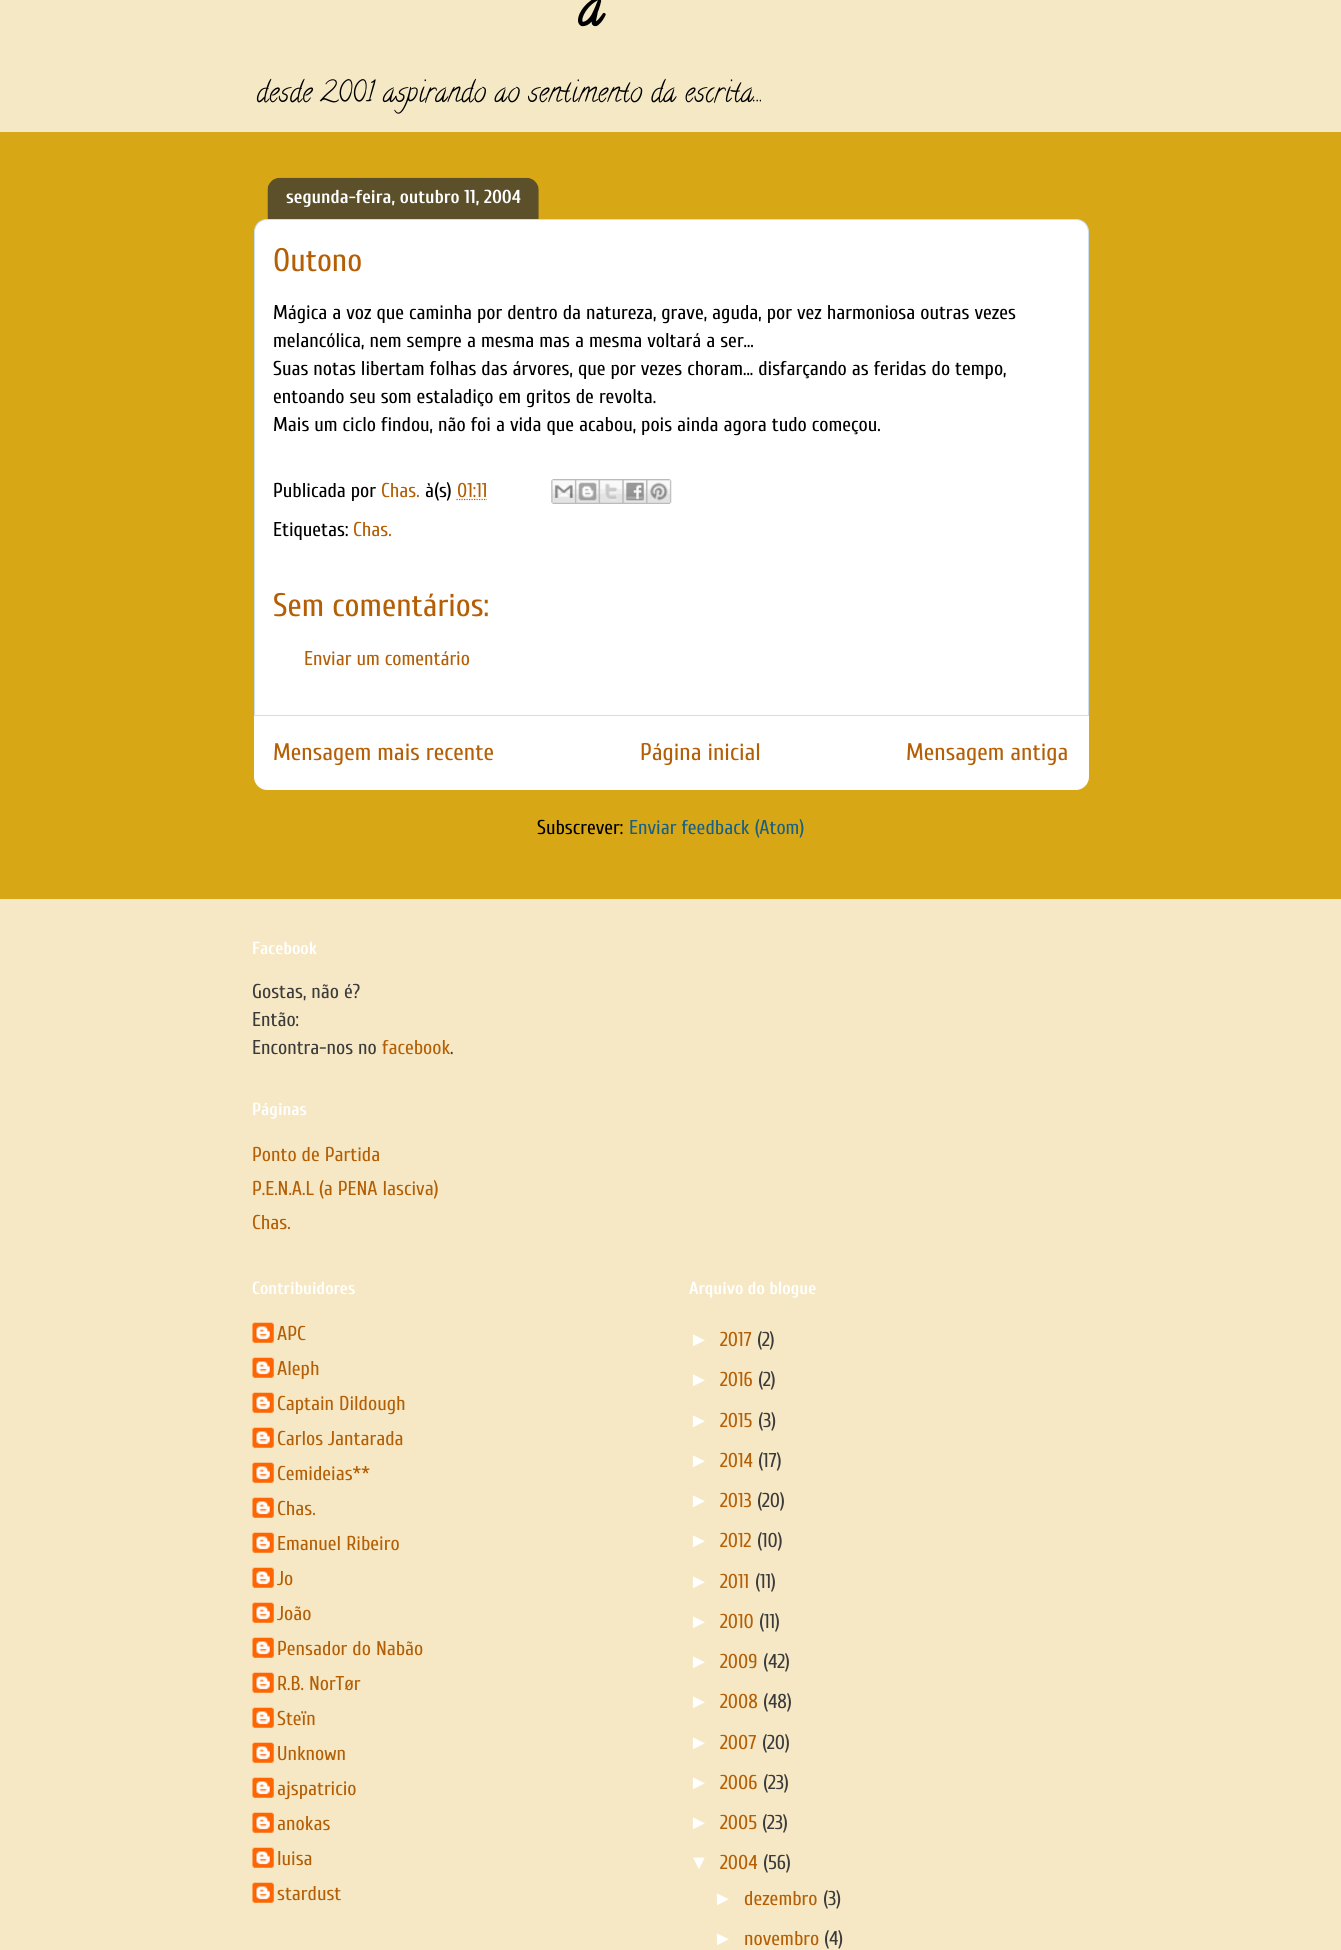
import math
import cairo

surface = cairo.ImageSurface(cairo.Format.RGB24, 1341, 1950)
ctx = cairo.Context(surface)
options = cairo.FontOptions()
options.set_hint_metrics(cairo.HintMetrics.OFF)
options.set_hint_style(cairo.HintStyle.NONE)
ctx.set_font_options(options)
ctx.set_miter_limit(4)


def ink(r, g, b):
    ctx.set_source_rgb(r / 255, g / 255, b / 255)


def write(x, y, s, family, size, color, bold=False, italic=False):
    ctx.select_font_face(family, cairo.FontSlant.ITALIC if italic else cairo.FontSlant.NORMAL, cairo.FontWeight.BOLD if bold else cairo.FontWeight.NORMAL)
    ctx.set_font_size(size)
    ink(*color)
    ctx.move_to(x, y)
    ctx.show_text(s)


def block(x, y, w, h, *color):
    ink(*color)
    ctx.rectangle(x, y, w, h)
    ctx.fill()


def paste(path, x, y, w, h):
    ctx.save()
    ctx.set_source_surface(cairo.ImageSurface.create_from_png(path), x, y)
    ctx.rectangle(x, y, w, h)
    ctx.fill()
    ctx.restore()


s1 = dict(family="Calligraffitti", size=56, color=(0, 0, 0), bold=True)
s2 = dict(family="Calligraffitti", size=28.75, color=(0, 0, 0))
s3 = dict(family="Cuprum", size=18.75, color=(255, 255, 255), bold=True)
s4 = dict(family="Cuprum", size=32.5, color=(180, 95, 6))
s5 = dict(family="Cuprum", size=20, color=(0, 0, 0))
s6 = dict(family="Cuprum", size=20, color=(180, 95, 6))
s7 = dict(family="Cuprum", size=24, color=(180, 95, 6))
s8 = dict(family="Cuprum", size=20, color=(25, 96, 132))
s9 = dict(family="Cuprum", size=17.5, color=(255, 255, 255), bold=True)
s10 = dict(family="Cuprum", size=20, color=(59, 59, 59))
s11 = dict(family="Liberation Sans", size=20, color=(255, 255, 255))

ink(216, 167, 21)
ctx.paint()
block(0, 0, 1341, 132, 245, 233, 197)
write(578, 24, "a", **s1)
write(256, 101, "desde 2001 aspirando ao sentimento da escrita...", **s2)
ink(255, 255, 255)
ctx.new_path()
ctx.move_to(267, 219.5)
ctx.line_to(1076, 219.5)
ctx.curve_to(1083, 219.5, 1088.5, 225, 1088.5, 232)
ctx.line_to(1088.5, 715.5)
ctx.line_to(254.5, 715.5)
ctx.line_to(254.5, 232)
ctx.curve_to(254.5, 225, 260, 219.5, 267, 219.5)
ctx.close_path()
ctx.fill_preserve()
ink(204, 221, 244)
ctx.set_line_width(1)
ctx.stroke()
paste("pic1.png", 267, 177, 272, 42)
write(286, 203, "segunda-feira, outubro 11, 2004", **s3)
write(273, 271, "Outono", **s4)
write(273, 319, "Mágica a voz que caminha por dentro da natureza, grave, aguda, por vez harmoniosa outras vezes", **s5)
write(273, 347, "melancólica, nem sempre a mesma mas a mesma voltará a ser…", **s5)
write(273, 375, "Suas notas libertam folhas das árvores, que por vezes choram... disfarçando as feridas do tempo,", **s5)
write(273, 403, "entoando seu som estaladiço em gritos de revolta.", **s5)
write(273, 431, "Mais um ciclo findou, não foi a vida que acabou, pois ainda agora tudo começou.", **s5)
write(273, 497, "Publicada por", **s5)
write(381, 497, "Chas.", **s6)
write(425, 497, "à(s)", **s5)
write(457, 497, "01:11", **s6)
ctx.new_path()
ctx.move_to(456.5, 499.5)
ctx.line_to(487, 499.5)
ctx.set_line_width(1.2)
ctx.set_dash([1.25, 1.25])
ctx.stroke()
paste("pic2.png", 551, 479, 24, 25)
paste("pic3.png", 575, 479, 24, 25)
paste("pic4.png", 598, 479, 25, 25)
paste("pic5.png", 622, 479, 25, 25)
paste("pic6.png", 646, 479, 26, 25)
write(273, 536, "Etiquetas:", **s5)
write(353, 536, "Chas.", **s6)
write(273, 616, "Sem comentários:", **s4)
write(304, 665, "Enviar um comentário", **s6)
ink(255, 255, 255)
ctx.new_path()
ctx.move_to(254, 716)
ctx.line_to(1089, 716)
ctx.line_to(1089, 777)
ctx.curve_to(1089, 784, 1083, 790, 1076, 790)
ctx.line_to(267, 790)
ctx.curve_to(260, 790, 254, 784, 254, 777)
ctx.close_path()
ctx.fill()
write(273, 760, "Mensagem mais recente", **s7)
write(640, 760, "Página inicial", **s7)
write(906, 760, "Mensagem antiga", **s7)
write(537, 834, "Subscrever:", **s5)
write(629, 834, "Enviar feedback (Atom)", **s8)
block(0, 899, 1341, 1051, 246, 232, 196)
write(252, 954, "Facebook", **s9)
write(252, 998, "Gostas, não é?", **s10)
write(252, 1026, "Então:", **s10)
write(252, 1054, "Encontra-nos no", **s10)
write(382, 1054, "facebook", **s6)
write(450, 1054, ".", **s10)
write(252, 1115, "Páginas", **s9)
write(252, 1161, "Ponto de Partida", **s6)
write(252, 1195, "P.E.N.A.L (a PENA lasciva)", **s6)
write(252, 1229, "Chas.", **s6)
write(252, 1294, "Contribuidores", **s9)
paste("pic7.png", 252, 1322, 22, 21)
write(277, 1340, "APC", **s6)
paste("pic7.png", 252, 1357, 22, 21)
write(277, 1375, "Aleph", **s6)
paste("pic7.png", 252, 1392, 22, 21)
write(277, 1410, "Captain Dildough", **s6)
paste("pic7.png", 252, 1427, 22, 21)
write(277, 1445, "Carlos Jantarada", **s6)
paste("pic8.png", 252, 1462, 22, 21)
write(277, 1480, "Cemideias**", **s6)
paste("pic7.png", 252, 1497, 22, 21)
write(277, 1515, "Chas.", **s6)
paste("pic7.png", 252, 1532, 22, 21)
write(277, 1550, "Emanuel Ribeiro", **s6)
paste("pic7.png", 252, 1567, 22, 21)
write(277, 1585, "Jo", **s6)
paste("pic7.png", 252, 1602, 22, 21)
write(277, 1620, "João", **s6)
paste("pic7.png", 252, 1637, 22, 21)
write(277, 1655, "Pensador do Nabão", **s6)
paste("pic7.png", 252, 1672, 22, 21)
write(277, 1690, "R.B. NorTør", **s6)
paste("pic7.png", 252, 1707, 22, 21)
write(277, 1725, "Steïn", **s6)
paste("pic7.png", 252, 1742, 22, 21)
write(277, 1760, "Unknown", **s6)
paste("pic7.png", 252, 1777, 22, 21)
write(277, 1795, "ajspatricio", **s6)
paste("pic7.png", 252, 1812, 22, 21)
write(277, 1830, "anokas", **s6)
paste("pic7.png", 252, 1847, 22, 21)
write(277, 1865, "luisa", **s6)
paste("pic7.png", 252, 1882, 22, 21)
write(277, 1900, "stardust", **s6)
write(689, 1294, "Arquivo do blogue", **s9)
write(689, 1346, "►", **s11)
write(720, 1346, "2017", **s6)
write(757, 1346, "(2)", **s10)
write(689, 1386, "►", **s11)
write(720, 1386, "2016", **s6)
write(758, 1386, "(2)", **s10)
write(689, 1427, "►", **s11)
write(720, 1427, "2015", **s6)
write(758, 1427, "(3)", **s10)
write(689, 1467, "►", **s11)
write(720, 1467, "2014", **s6)
write(758, 1467, "(17)", **s10)
write(689, 1507, "►", **s11)
write(720, 1507, "2013", **s6)
write(757, 1507, "(20)", **s10)
write(689, 1547, "►", **s11)
write(720, 1547, "2012", **s6)
write(757, 1547, "(10)", **s10)
write(689, 1588, "►", **s11)
write(720, 1588, "2011", **s6)
write(755, 1588, "(11)", **s10)
write(689, 1628, "►", **s11)
write(720, 1628, "2010", **s6)
write(759, 1628, "(11)", **s10)
write(689, 1668, "►", **s11)
write(720, 1668, "2009", **s6)
write(763, 1668, "(42)", **s10)
write(689, 1708, "►", **s11)
write(720, 1708, "2008", **s6)
write(763, 1708, "(48)", **s10)
write(689, 1749, "►", **s11)
write(720, 1749, "2007", **s6)
write(762, 1749, "(20)", **s10)
write(689, 1789, "►", **s11)
write(720, 1789, "2006", **s6)
write(763, 1789, "(23)", **s10)
write(689, 1829, "►", **s11)
write(720, 1829, "2005", **s6)
write(762, 1829, "(23)", **s10)
write(689, 1869, "▼", **s11)
write(720, 1869, "2004", **s6)
write(763, 1869, "(56)", **s10)
write(713, 1905, "►", **s11)
write(744, 1905, "dezembro", **s6)
write(823, 1905, "(3)", **s10)
write(713, 1945, "►", **s11)
write(744, 1945, "novembro", **s6)
write(824, 1945, "(4)", **s10)
surface.write_to_png("screenshot.png")
